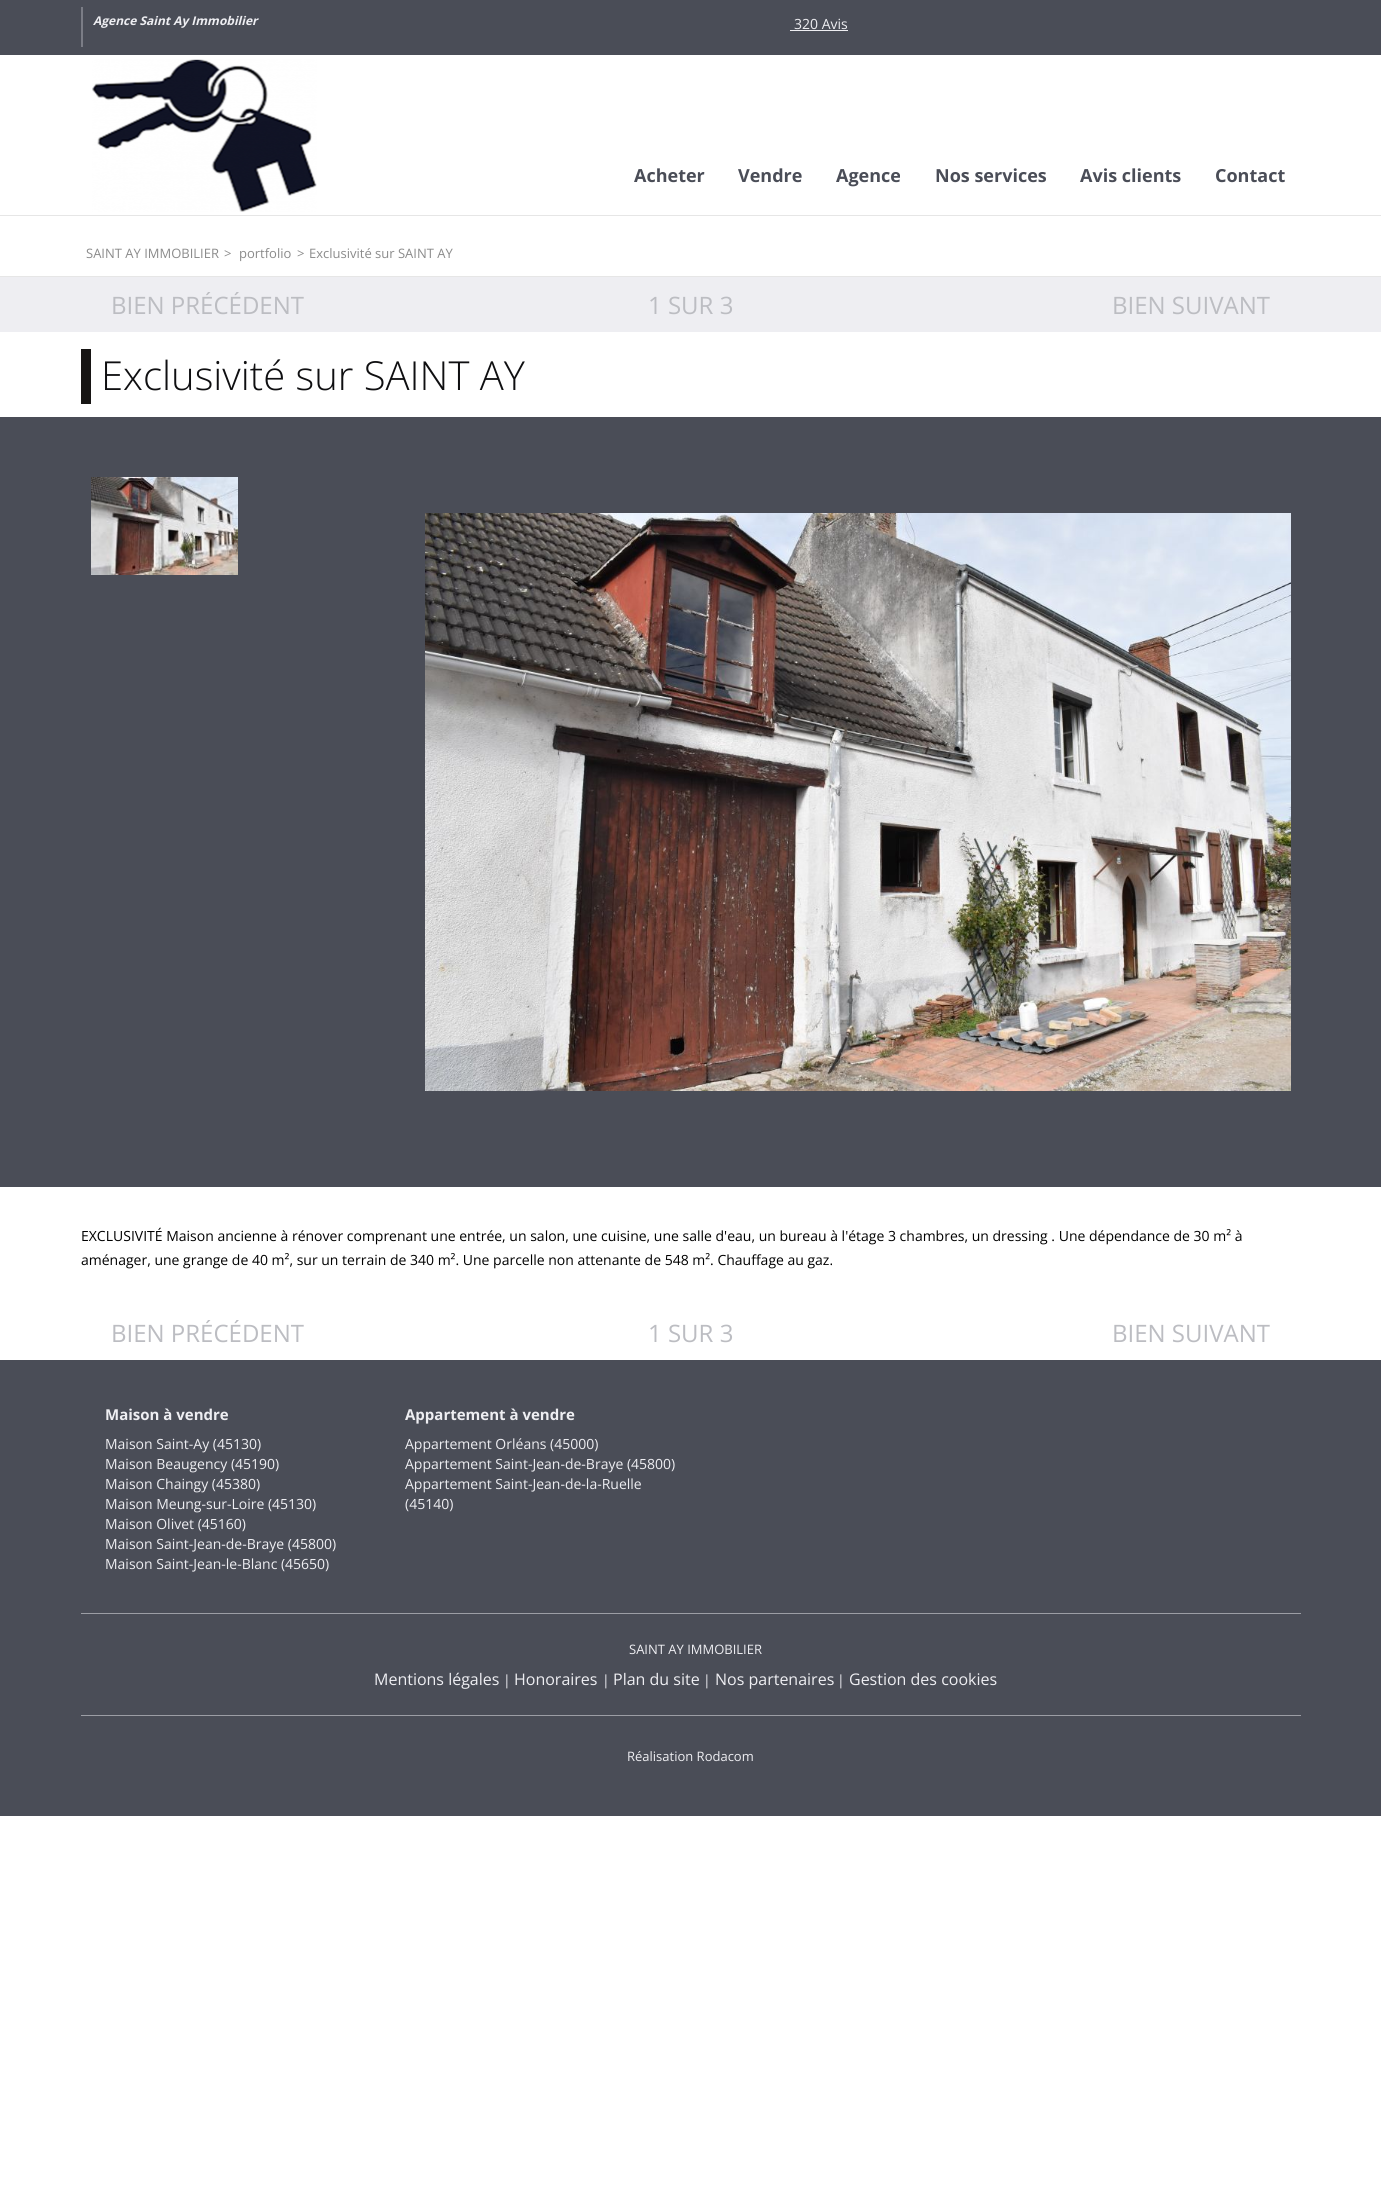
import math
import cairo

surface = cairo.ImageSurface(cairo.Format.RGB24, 1381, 2190)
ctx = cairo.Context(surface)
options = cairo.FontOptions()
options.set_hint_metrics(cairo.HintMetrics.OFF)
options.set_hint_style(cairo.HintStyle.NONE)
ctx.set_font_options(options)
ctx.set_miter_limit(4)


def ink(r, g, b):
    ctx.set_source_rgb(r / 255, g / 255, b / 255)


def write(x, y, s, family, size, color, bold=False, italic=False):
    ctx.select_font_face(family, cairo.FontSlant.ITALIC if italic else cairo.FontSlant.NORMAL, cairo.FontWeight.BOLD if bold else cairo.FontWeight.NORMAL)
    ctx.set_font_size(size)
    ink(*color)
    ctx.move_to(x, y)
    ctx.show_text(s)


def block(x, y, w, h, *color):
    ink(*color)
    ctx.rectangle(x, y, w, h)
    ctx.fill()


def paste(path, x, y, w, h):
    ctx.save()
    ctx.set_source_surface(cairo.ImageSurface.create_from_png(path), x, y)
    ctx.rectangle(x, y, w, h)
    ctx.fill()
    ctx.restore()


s1 = dict(family="Open Sans", size=12, color=(238, 238, 242), bold=True, italic=True)
s2 = dict(family="Open Sans", size=14, color=(238, 238, 242))
s3 = dict(family="Open Sans", size=18, color=(74, 77, 87), bold=True)
s4 = dict(family="Open Sans", size=13, color=(139, 139, 139))
s5 = dict(family="Open Sans", size=24, color=(188, 189, 194))
s6 = dict(family="Open Sans Light", size=40, color=(15, 15, 17))
s7 = dict(family="Open Sans", size=14, color=(0, 0, 0))
s8 = dict(family="Open Sans", size=15, color=(238, 238, 242), bold=True)
s9 = dict(family="Open Sans", size=13, color=(238, 238, 242))
s10 = dict(family="Open Sans", size=16, color=(238, 238, 242))

ink(255, 255, 255)
ctx.paint()
block(0, 0, 1381, 55, 74, 77, 87)
block(81, 7, 2, 40, 123, 125, 134)
write(93, 25, "Agence Saint Ay Immobilier", **s1)
write(794, 29, "320 Avis", **s2)
block(790, 30, 58, 1, 238, 238, 242)
block(0, 215, 1381, 1, 230, 230, 230)
paste("pic1.png", 92, 59, 225, 153)
write(634, 182, "Acheter", **s3)
write(738, 182, "Vendre", **s3)
write(836, 182, "Agence", **s3)
write(935, 182, "Nos services", **s3)
write(1080, 182, "Avis clients", **s3)
write(1215, 182, "Contact", **s3)
block(0, 276, 1381, 1, 230, 230, 230)
write(86, 258, "SAINT AY IMMOBILIER", **s4)
write(224, 258, ">", **s4)
write(239, 258, "portfolio", **s4)
write(297, 258, ">", **s4)
write(309, 258, "Exclusivité sur SAINT AY", **s4)
block(0, 277, 1381, 55, 238, 238, 242)
ctx.save()
ctx.rectangle(81, 292, 406, 25)
ctx.clip()
write(111, 314, "BIEN PRÉCÉDENT", **s5)
ctx.restore()
write(648, 314, "1 SUR 3", **s5)
write(1112, 314, "BIEN SUIVANT", **s5)
block(81, 349, 10, 55, 23, 21, 20)
write(101, 390, "Exclusivité sur SAINT AY", **s6)
block(0, 417, 1381, 770, 74, 77, 87)
paste("pic2.png", 91, 477, 147, 98)
paste("pic3.png", 425, 513, 866, 578)
write(81, 1241, "EXCLUSIVITÉ Maison ancienne à rénover comprenant une entrée, un salon, une cuisine, une salle d'eau, un bureau à l'étage 3 chambres, un dressing . Une dépendance de 30 m² à", **s7)
write(81, 1265, "aménager, une grange de 40 m², sur un terrain de 340 m². Une parcelle non attenante de 548 m². Chauffage au gaz.", **s7)
ctx.save()
ctx.rectangle(81, 1320, 406, 25)
ctx.clip()
write(111, 1342, "BIEN PRÉCÉDENT", **s5)
ctx.restore()
write(648, 1342, "1 SUR 3", **s5)
write(1112, 1342, "BIEN SUIVANT", **s5)
block(0, 1360, 1381, 456, 74, 77, 87)
write(105, 1420, "Maison à vendre", **s8)
write(105, 1449, "Maison Saint-Ay (45130)", **s2)
write(105, 1469, "Maison Beaugency (45190)", **s2)
write(105, 1489, "Maison Chaingy (45380)", **s2)
write(105, 1509, "Maison Meung-sur-Loire (45130)", **s2)
write(105, 1529, "Maison Olivet (45160)", **s2)
write(105, 1549, "Maison Saint-Jean-de-Braye (45800)", **s2)
write(105, 1569, "Maison Saint-Jean-le-Blanc (45650)", **s2)
write(405, 1420, "Appartement à vendre", **s8)
write(405, 1449, "Appartement Orléans (45000)", **s2)
write(405, 1469, "Appartement Saint-Jean-de-Braye (45800)", **s2)
write(405, 1489, "Appartement Saint-Jean-de-la-Ruelle", **s2)
write(405, 1509, "(45140)", **s2)
block(81, 1613, 1220, 1, 156, 158, 165)
block(81, 1715, 1220, 1, 156, 158, 165)
write(629, 1654, "SAINT AY IMMOBILIER", **s9)
write(374, 1685, "Mentions légales", **s10)
write(503, 1685, "|", **s2)
write(514, 1685, "Honoraires", **s10)
write(602, 1685, "|", **s2)
write(613, 1685, "Plan du site", **s10)
write(703, 1685, "|", **s2)
write(715, 1685, "Nos partenaires", **s10)
write(837, 1685, "|", **s2)
write(849, 1685, "Gestion des cookies", **s10)
write(627, 1761, "Réalisation Rodacom", **s9)
surface.write_to_png("screenshot.png")
